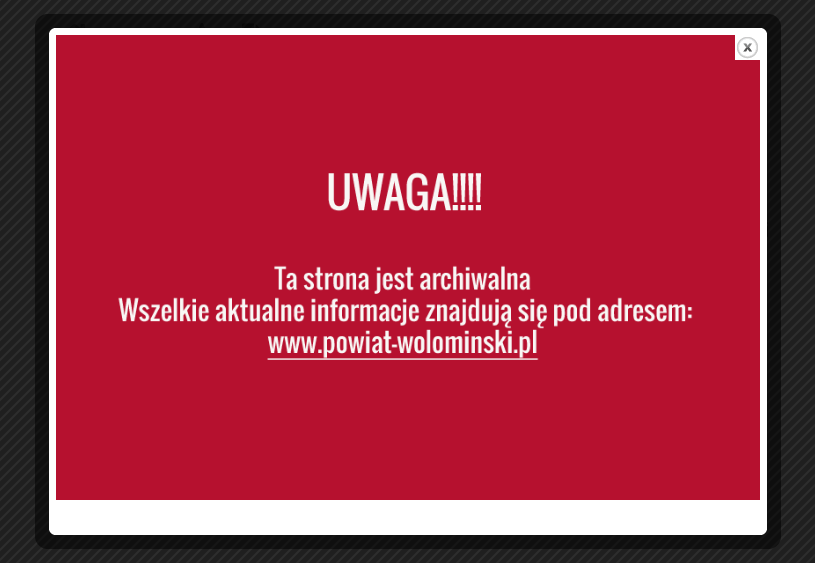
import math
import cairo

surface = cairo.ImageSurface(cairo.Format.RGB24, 815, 563)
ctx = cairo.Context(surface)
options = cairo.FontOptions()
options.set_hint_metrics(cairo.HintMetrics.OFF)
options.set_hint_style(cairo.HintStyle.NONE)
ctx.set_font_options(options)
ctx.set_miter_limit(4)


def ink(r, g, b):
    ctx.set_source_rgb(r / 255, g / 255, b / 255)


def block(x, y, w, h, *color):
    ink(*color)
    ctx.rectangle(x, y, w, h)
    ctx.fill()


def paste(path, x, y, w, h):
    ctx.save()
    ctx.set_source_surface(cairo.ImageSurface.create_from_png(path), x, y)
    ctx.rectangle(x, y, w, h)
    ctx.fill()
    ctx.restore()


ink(255, 255, 255)
ctx.paint()
paste("pic12.png", 69, 24, 17, 4)
paste("pic13.png", 158, 27, 2, 1)
paste("pic14.png", 199, 23, 6, 5)
paste("pic15.png", 242, 23, 18, 5)
paste("pic16.png", 767, 221, 1, 17)
paste("pic1.png", 0, 0, 815, 563)
paste("pic2.png", 35, 14, 21, 21)
paste("pic3.png", 56, 14, 704, 21)
paste("pic4.png", 760, 14, 21, 21)
paste("pic5.png", 35, 35, 21, 493)
block(56, 500, 704, 28, 255, 255, 255)
paste("pic6.png", 56, 35, 704, 465)
paste("pic7.png", 735, 35, 25, 25)
paste("pic8.png", 760, 35, 21, 493)
paste("pic9.png", 35, 528, 21, 21)
paste("pic10.png", 56, 528, 704, 21)
paste("pic11.png", 760, 528, 21, 21)
surface.write_to_png("screenshot.png")
